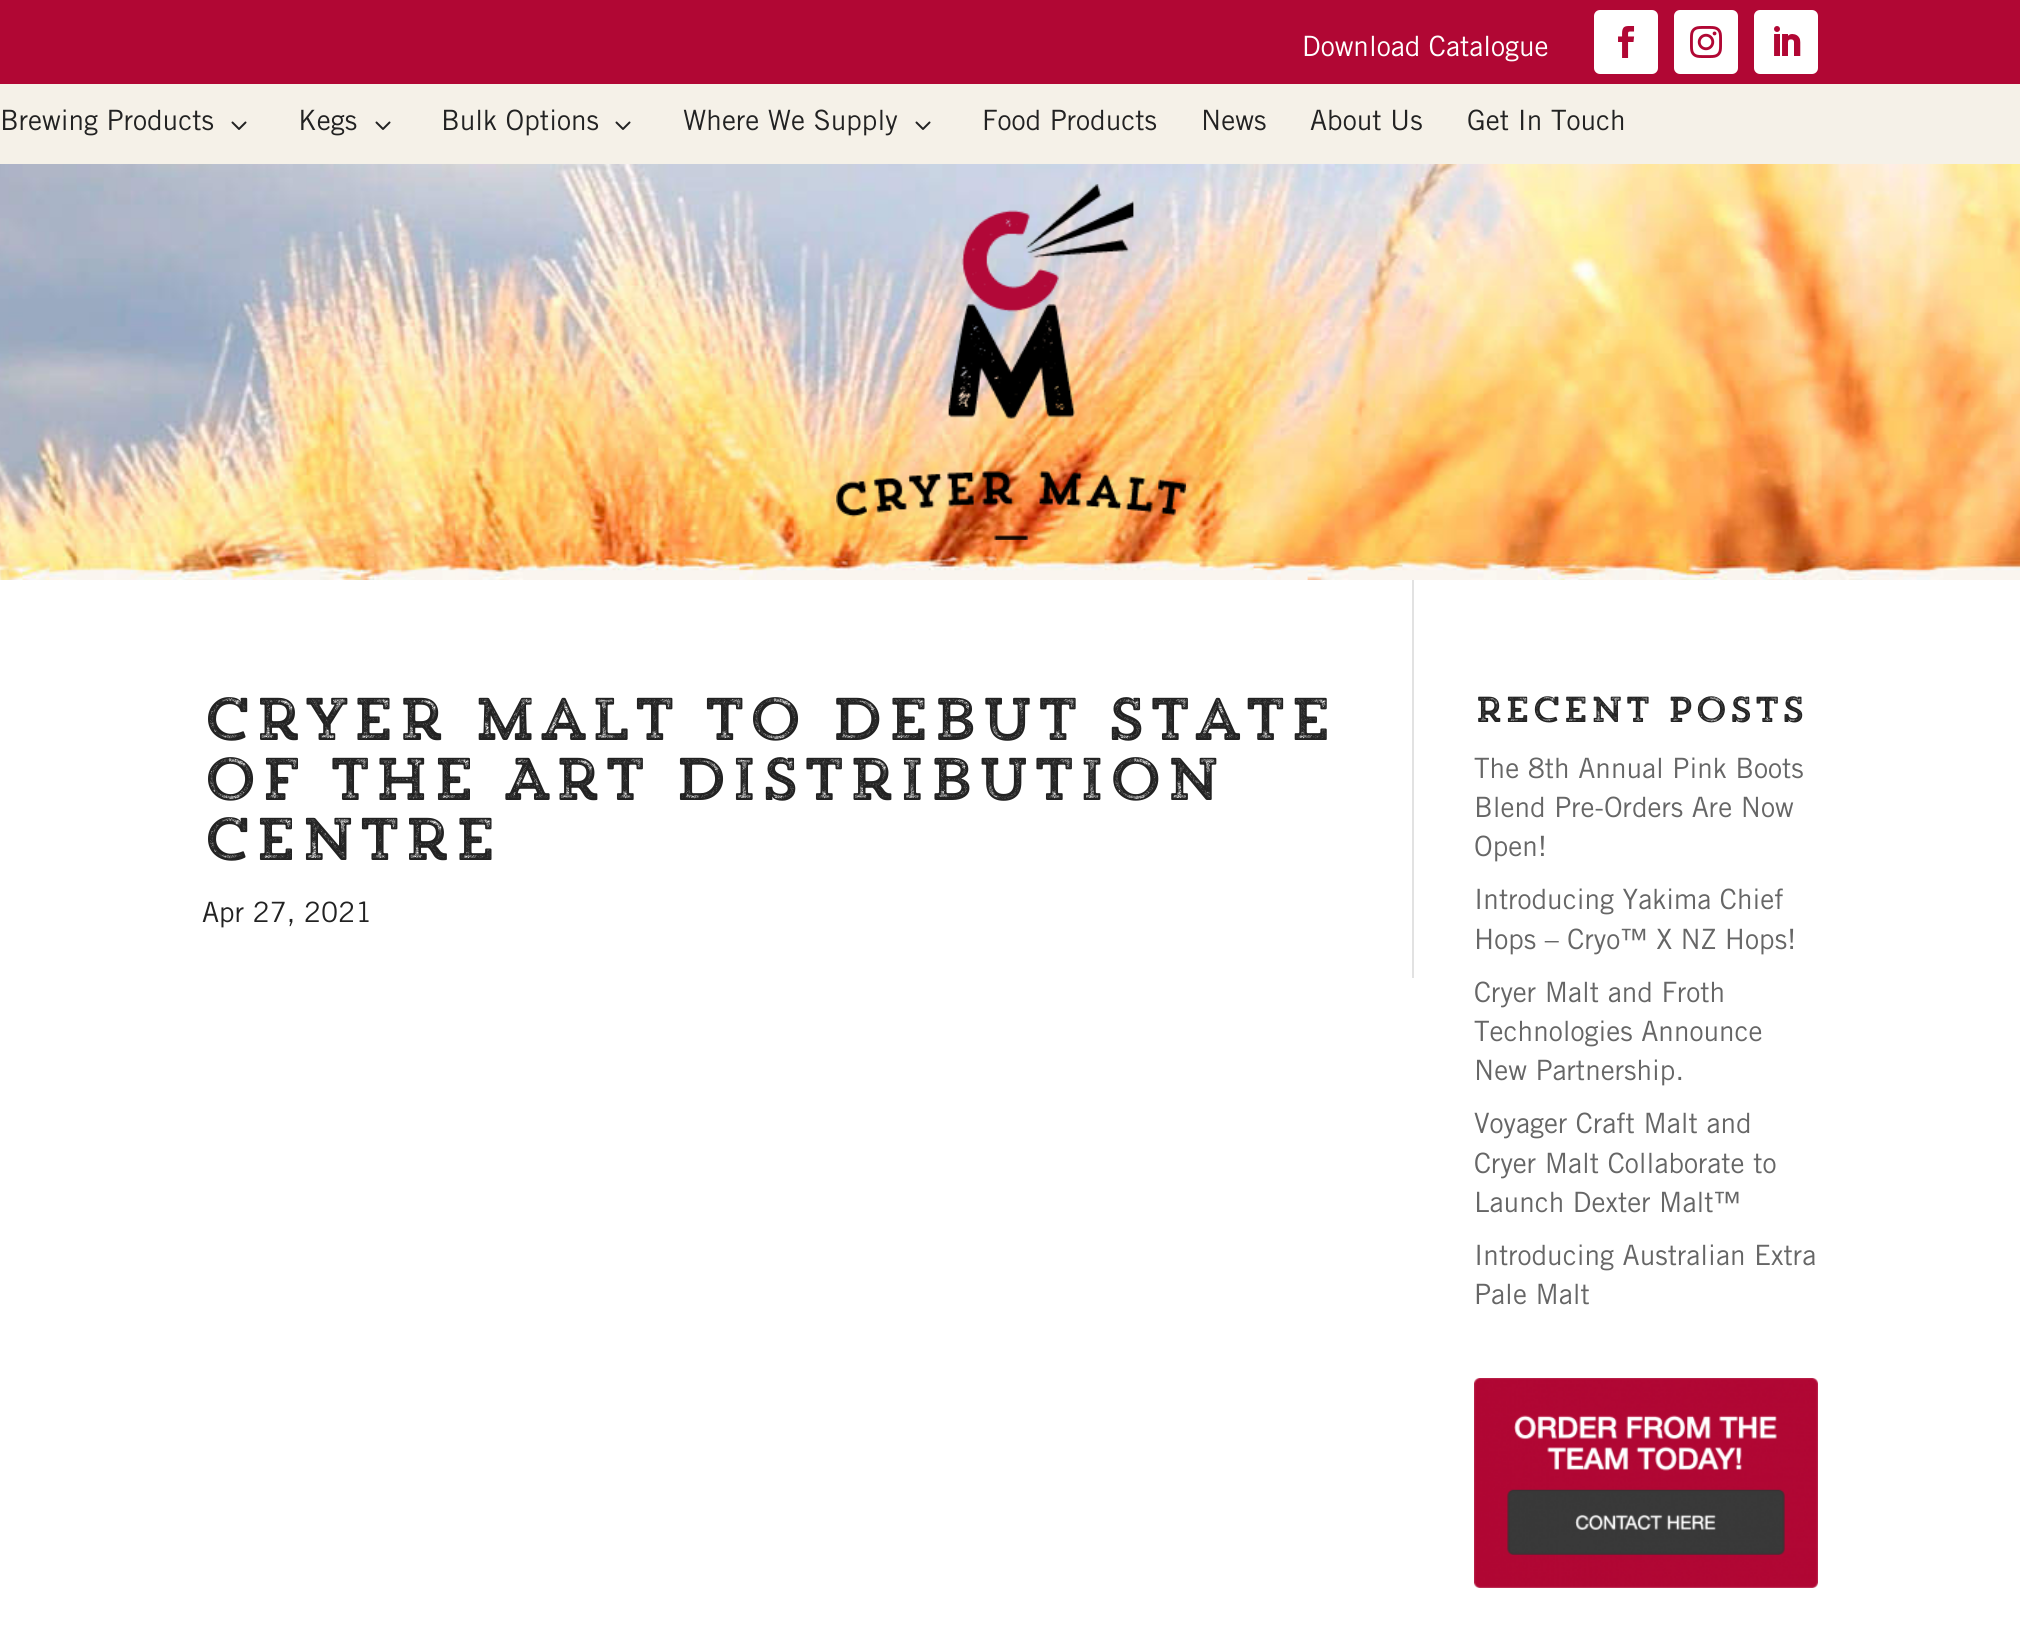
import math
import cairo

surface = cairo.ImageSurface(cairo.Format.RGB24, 2020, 1652)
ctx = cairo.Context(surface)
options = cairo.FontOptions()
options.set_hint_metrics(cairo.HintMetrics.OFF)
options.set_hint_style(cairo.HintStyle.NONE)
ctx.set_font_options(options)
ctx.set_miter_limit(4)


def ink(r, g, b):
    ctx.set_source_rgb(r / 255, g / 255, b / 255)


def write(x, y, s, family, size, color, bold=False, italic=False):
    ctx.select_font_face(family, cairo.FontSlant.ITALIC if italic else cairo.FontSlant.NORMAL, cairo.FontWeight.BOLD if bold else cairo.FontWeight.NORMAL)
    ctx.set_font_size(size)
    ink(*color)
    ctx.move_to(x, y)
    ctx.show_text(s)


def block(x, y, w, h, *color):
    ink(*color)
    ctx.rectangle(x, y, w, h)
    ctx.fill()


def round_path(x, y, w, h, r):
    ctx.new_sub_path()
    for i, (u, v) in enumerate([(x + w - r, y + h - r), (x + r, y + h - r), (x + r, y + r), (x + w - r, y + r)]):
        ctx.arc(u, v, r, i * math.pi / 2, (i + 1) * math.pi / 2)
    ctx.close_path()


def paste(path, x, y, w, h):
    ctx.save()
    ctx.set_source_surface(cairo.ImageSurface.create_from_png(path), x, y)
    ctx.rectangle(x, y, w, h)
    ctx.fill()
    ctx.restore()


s1 = dict(family="Trade Gothic", size=28, color=(255, 255, 255))
s2 = dict(family="Trade Gothic", size=28, color=(34, 34, 34))
s3 = dict(family="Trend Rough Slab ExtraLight", size=60, color=(34, 34, 34))
s4 = dict(family="Trend Rough Slab ExtraLight", size=36, color=(34, 34, 34))
s5 = dict(family="Trade Gothic", size=28, color=(102, 102, 102))

ink(245, 241, 232)
ctx.paint()
block(0, 0, 2020, 84, 177, 7, 52)
write(1302, 56, "Download Catalogue", **s1)
round_path(1594, 10, 64, 64, 6)
ctx.fill()
paste("pic1.png", 1618, 26, 17, 32)
round_path(1674, 10, 64, 64, 6)
ctx.fill()
paste("pic2.png", 1690, 26, 32, 32)
round_path(1754, 10, 64, 64, 6)
ctx.fill()
paste("pic3.png", 1774, 26, 27, 30)
write(0, 130, "Brewing Products", **s2)
paste("pic4.png", 231, 121, 16, 9)
write(298, 130, "Kegs", **s2)
paste("pic4.png", 375, 121, 16, 9)
write(441, 130, "Bulk Options", **s2)
paste("pic4.png", 615, 121, 16, 9)
write(683, 130, "Where We Supply", **s2)
paste("pic4.png", 915, 121, 16, 9)
write(982, 130, "Food Products", **s2)
write(1201, 130, "News", **s2)
write(1310, 130, "About Us", **s2)
write(1467, 130, "Get In Touch", **s2)
paste("pic5.png", 0, 164, 2020, 416)
paste("pic6.png", 836, 184, 350, 356)
block(0, 580, 2020, 1072, 255, 255, 255)
block(1412, 580, 2, 398, 226, 226, 226)
write(202, 740, "Cryer Malt to Debut State", **s3)
write(202, 800, "of the Art Distribution", **s3)
write(202, 860, "Centre", **s3)
write(202, 922, "Apr 27, 2021", **s2)
write(1474, 722, "Recent Posts", **s4)
write(1474, 778, "The 8th Annual Pink Boots", **s5)
write(1474, 817, "Blend Pre-Orders Are Now", **s5)
write(1474, 856, "Open!", **s5)
write(1474, 909, "Introducing Yakima Chief", **s5)
write(1474, 949, "Hops – Cryo™ X NZ Hops!", **s5)
write(1474, 1002, "Cryer Malt and Froth", **s5)
write(1474, 1041, "Technologies Announce", **s5)
write(1474, 1080, "New Partnership.", **s5)
write(1474, 1133, "Voyager Craft Malt and", **s5)
write(1474, 1173, "Cryer Malt Collaborate to", **s5)
write(1474, 1212, "Launch Dexter Malt™", **s5)
write(1474, 1265, "Introducing Australian Extra", **s5)
write(1474, 1304, "Pale Malt", **s5)
paste("pic7.png", 1474, 1378, 344, 210)
surface.write_to_png("screenshot.png")
